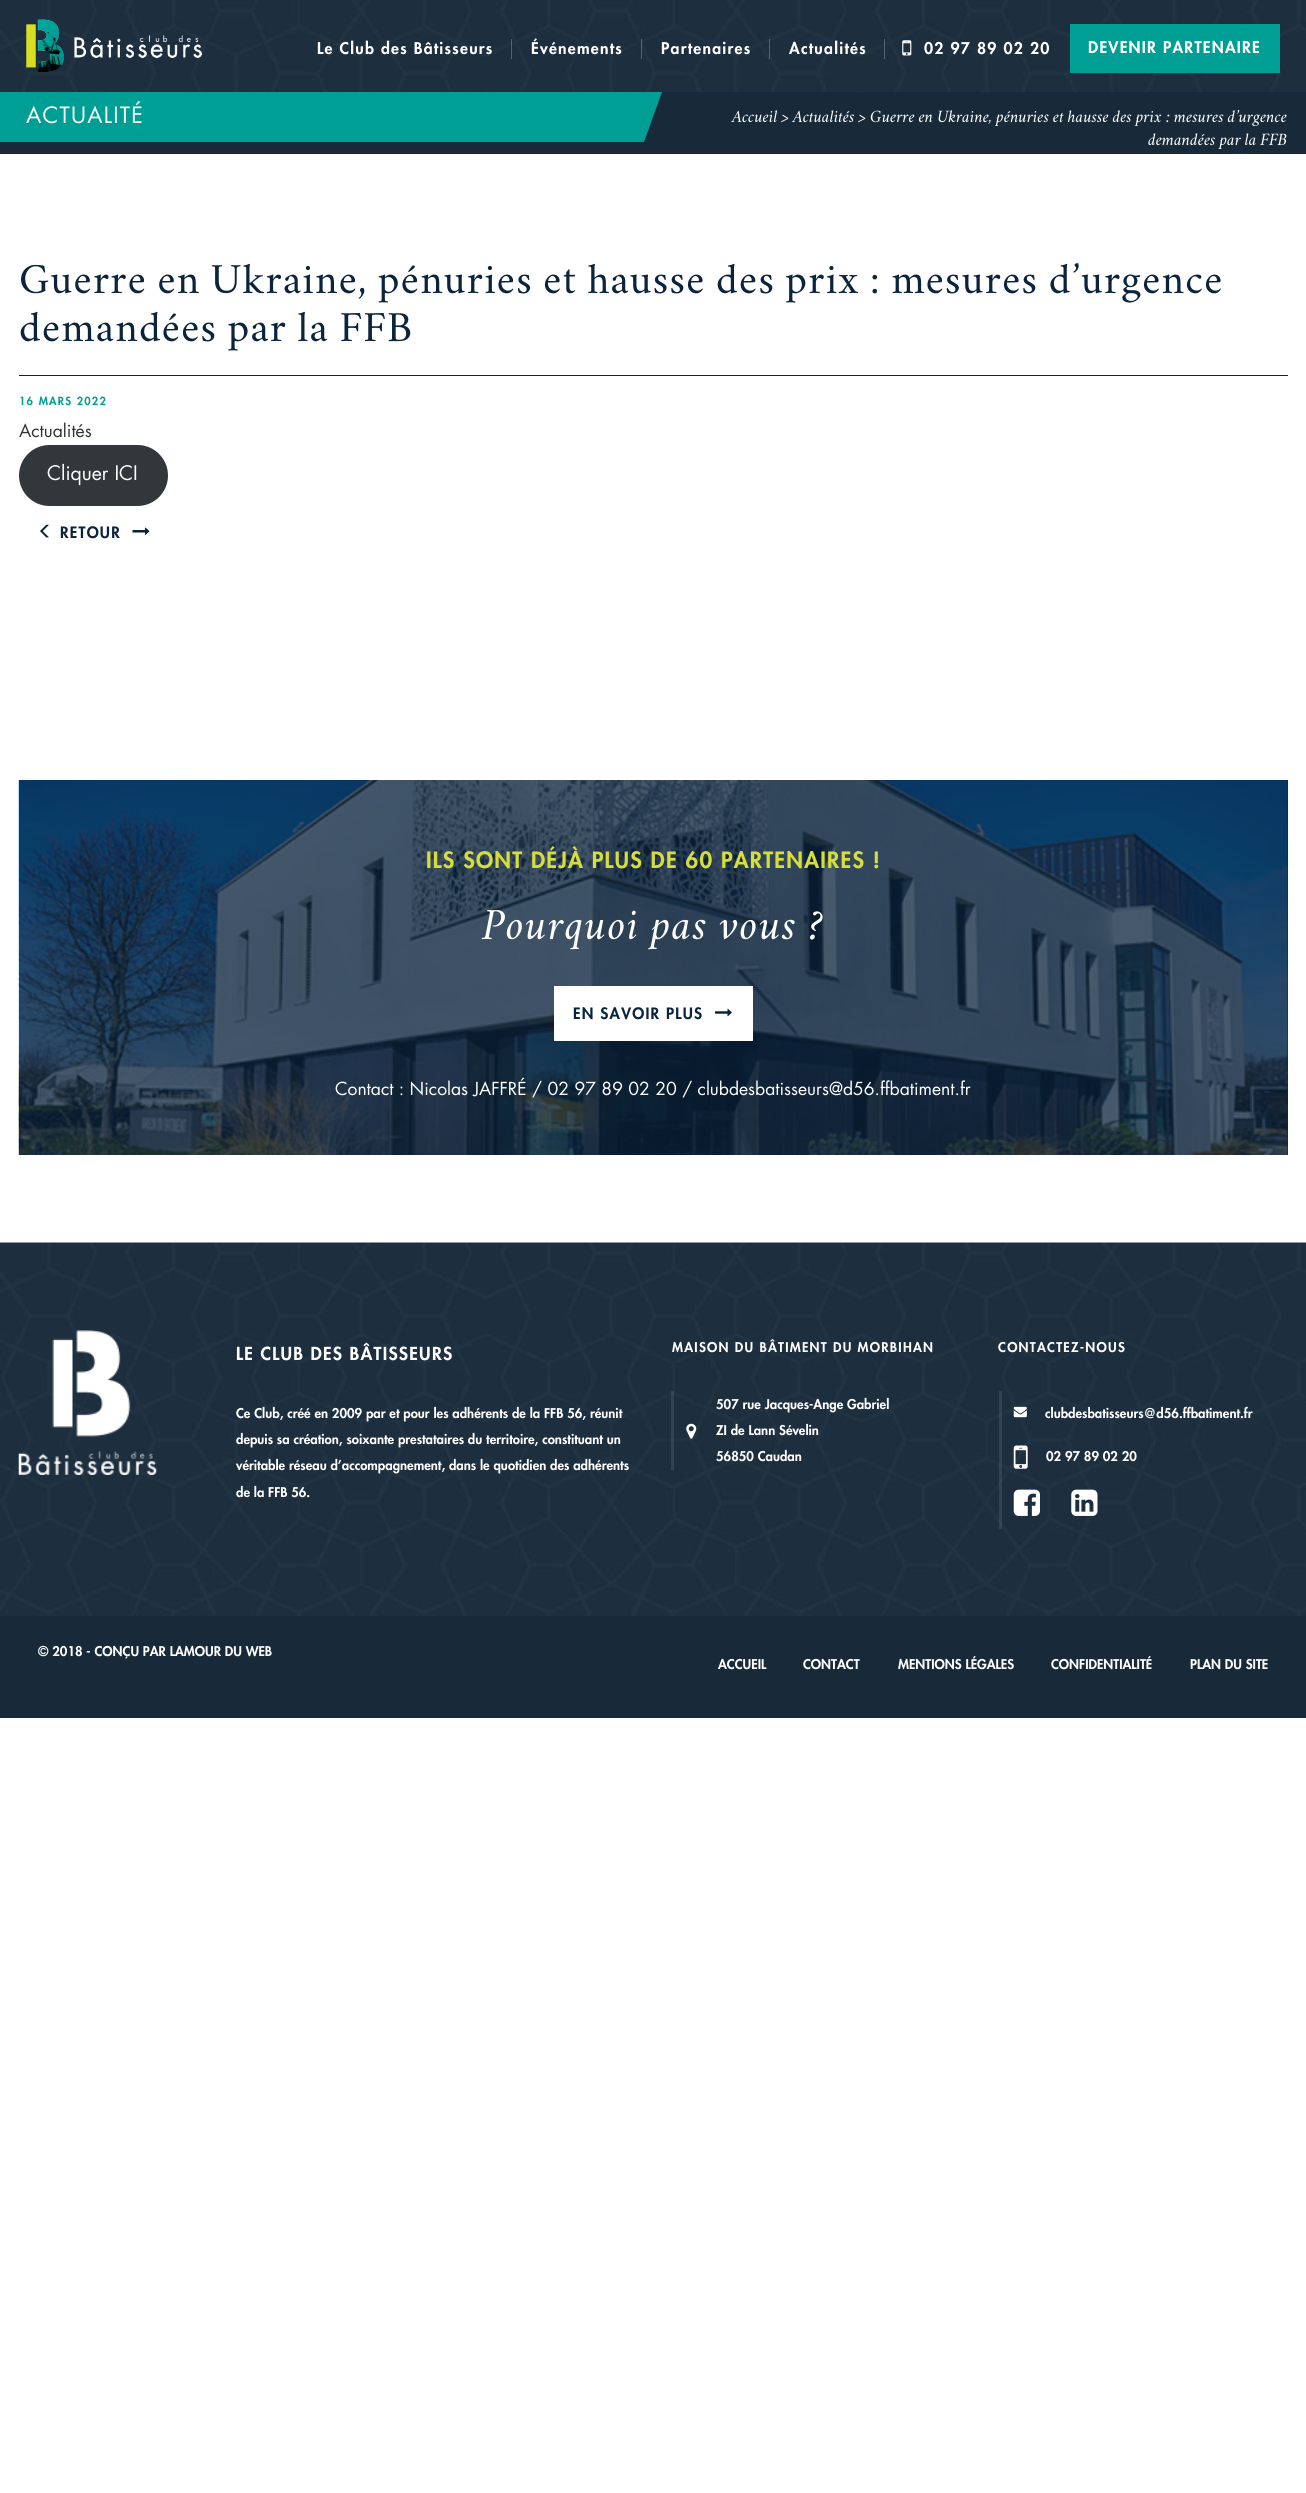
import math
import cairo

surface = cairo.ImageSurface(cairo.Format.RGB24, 1306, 2493)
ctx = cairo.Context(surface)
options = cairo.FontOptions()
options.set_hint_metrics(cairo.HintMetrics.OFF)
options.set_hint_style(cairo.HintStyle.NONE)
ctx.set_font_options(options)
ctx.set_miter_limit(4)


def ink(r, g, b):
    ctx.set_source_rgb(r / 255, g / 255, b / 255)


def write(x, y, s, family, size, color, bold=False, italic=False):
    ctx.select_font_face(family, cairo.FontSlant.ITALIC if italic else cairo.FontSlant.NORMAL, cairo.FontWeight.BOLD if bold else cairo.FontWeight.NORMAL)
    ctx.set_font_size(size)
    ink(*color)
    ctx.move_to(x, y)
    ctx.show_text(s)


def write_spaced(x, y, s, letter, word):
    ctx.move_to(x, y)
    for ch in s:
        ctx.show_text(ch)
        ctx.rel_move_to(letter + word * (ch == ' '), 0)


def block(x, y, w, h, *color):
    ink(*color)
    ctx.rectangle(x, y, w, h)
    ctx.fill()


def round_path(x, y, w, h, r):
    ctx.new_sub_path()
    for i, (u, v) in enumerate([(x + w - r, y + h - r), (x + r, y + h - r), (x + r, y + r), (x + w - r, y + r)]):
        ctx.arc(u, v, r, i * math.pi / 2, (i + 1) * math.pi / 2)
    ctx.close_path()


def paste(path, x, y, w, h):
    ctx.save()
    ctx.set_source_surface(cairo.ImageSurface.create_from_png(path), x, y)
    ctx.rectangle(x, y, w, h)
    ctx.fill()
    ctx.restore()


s1 = dict(family="Crimson Text", size=15.3, color=(255, 255, 255), italic=True)
s2 = dict(family="Futura", size=17.5, color=(51, 51, 51))
s3 = dict(family="Futura", size=19.5, color=(255, 255, 255))
s4 = dict(family="Futura", size=17.5, color=(255, 255, 255))
s5 = dict(family="Futura Black", size=13.1, color=(255, 255, 255))

ink(255, 255, 255)
ctx.paint()
block(661, 92, 645, 1, 11, 36, 62)
paste("pic1.png", 0, 0, 1306, 93)
paste("pic2.png", 26, 19, 176, 53)
ctx.select_font_face("Futura Black")
ctx.set_font_size(15.75)
ink(255, 255, 255)
write_spaced(317, 54, "Le Club des Bâtisseurs", 1.25, 0)
ctx.set_source_rgba(1, 1, 1, 0.25)
ctx.rectangle(511, 39, 1, 20)
ctx.fill()
ink(255, 255, 255)
write_spaced(531, 54, "Événements", 1.25, 0)
ctx.set_source_rgba(1, 1, 1, 0.25)
ctx.rectangle(641, 39, 1, 20)
ctx.fill()
ink(255, 255, 255)
write_spaced(661, 54, "Partenaires", 1.25, 0)
ctx.set_source_rgba(1, 1, 1, 0.25)
ctx.rectangle(769, 39, 1, 20)
ctx.fill()
ink(255, 255, 255)
write_spaced(789, 54, "Actualités", 1.25, 0)
ctx.set_source_rgba(1, 1, 1, 0.25)
ctx.rectangle(884, 39, 1, 20)
ctx.fill()
paste("pic3.png", 902, 40, 10, 16)
ink(255, 255, 255)
write_spaced(924, 54, "02 97 89 02 20", 1.25, 0)
block(1070, 24, 210, 49, 0, 159, 149)
ink(255, 255, 255)
write_spaced(1088, 53, "DEVENIR PARTENAIRE", 1.25, 0)
block(0, 93, 1306, 61, 24, 42, 58)
ink(0, 159, 149)
ctx.new_path()
ctx.move_to(9, 92)
ctx.line_to(662, 92)
ctx.line_to(644, 142)
ctx.line_to(-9, 142)
ctx.close_path()
ctx.fill()
ctx.new_path()
ctx.move_to(-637, 92)
ctx.line_to(16, 92)
ctx.line_to(-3, 142)
ctx.line_to(-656, 142)
ctx.close_path()
ctx.fill()
ctx.select_font_face("Futura")
ctx.set_font_size(21.9)
ink(255, 255, 255)
write_spaced(26, 123, "ACTUALITÉ", 1.25, 0)
write(732, 122, "Accueil > Actualités > Guerre en Ukraine, pénuries et hausse des prix : mesures d’urgence", **s1)
write(1148, 145, "demandées par la FFB", **s1)
block(19, 375, 1269, 1, 11, 36, 62)
ctx.select_font_face("Crimson Text")
ctx.set_font_size(37.2)
write_spaced(19, 293, "Guerre en Ukraine, pénuries et hausse des prix : mesures d’urgence", 1.25, 0)
write_spaced(19, 341, "demandées par la FFB", 1.25, 0)
ctx.select_font_face("Futura Black")
ctx.set_font_size(11)
ink(0, 159, 149)
write_spaced(19, 405, "16 MARS 2022", 1.25, 0)
write(19, 437, "Actualités", **s2)
ink(50, 55, 60)
round_path(19, 445, 149, 61, 30.5)
ctx.fill()
write(47, 480, "Cliquer ICI", **s3)
paste("pic4.png", 40, 524, 9, 14)
ctx.select_font_face("Futura Black")
ctx.set_font_size(15.3)
ink(11, 36, 62)
write_spaced(60, 538, "RETOUR", 1.25, 0)
paste("pic5.png", 132, 527, 18, 8)
block(1287, 780, 1, 375, 11, 36, 62)
paste("pic6.png", 18, 780, 1270, 375)
ctx.set_font_size(21.9)
ink(215, 222, 60)
write_spaced(426, 868, "ILS SONT DÉJÀ PLUS DE 60 PARTENAIRES !", 1.25, 0)
ctx.select_font_face("Crimson Text", cairo.FontSlant.ITALIC)
ctx.set_font_size(39.4)
ink(255, 255, 255)
write_spaced(482, 939, "Pourquoi pas vous ?", 1.25, 0)
block(554, 986, 199, 55, 255, 255, 255)
ctx.select_font_face("Futura Black")
ctx.set_font_size(15.3)
ink(11, 36, 62)
write_spaced(573, 1019, "EN SAVOIR PLUS", 1.25, 0)
paste("pic7.png", 715, 1008, 17, 9)
write(335, 1095, "Contact : Nicolas JAFFRÉ / 02 97 89 02 20 / clubdesbatisseurs@d56.ffbatiment.fr", **s4)
paste("pic8.png", 0, 1242, 1306, 374)
paste("pic9.png", 18, 1330, 139, 145)
ctx.select_font_face("Futura Black")
write_spaced(236, 1360, "LE CLUB DES BÂTISSEURS", 1.25, 0)
write(236, 1418, "Ce Club, créé en 2009 par et pour les adhérents de la FFB 56, réunit", **s5)
write(236, 1444, "depuis sa création, soixante prestataires du territoire, constituant un", **s5)
write(236, 1470, "véritable réseau d’accompagnement, dans le quotidien des adhérents", **s5)
write(236, 1497, "de la FFB 56.", **s5)
write_spaced(672, 1352, "MAISON DU BÂTIMENT DU MORBIHAN", 1.25, 0)
ctx.set_source_rgba(1, 1, 1, 0.1)
ctx.rectangle(671, 1391, 3, 79)
ctx.fill()
paste("pic10.png", 686, 1423, 11, 16)
write(716, 1409, "507 rue Jacques-Ange Gabriel", **s5)
write(716, 1435, "ZI de Lann Sévelin", **s5)
write(716, 1461, "56850 Caudan", **s5)
write_spaced(998, 1352, "CONTACTEZ-NOUS", 1.25, 0)
ctx.set_source_rgba(1, 1, 1, 0.1)
ctx.rectangle(999, 1391, 3, 44)
ctx.fill()
paste("pic11.png", 1013, 1406, 14, 12)
write(1045, 1418, "clubdesbatisseurs@d56.ffbatiment.fr", **s5)
ctx.set_source_rgba(1, 1, 1, 0.1)
ctx.rectangle(999, 1435, 3, 44)
ctx.fill()
paste("pic12.png", 1013, 1445, 15, 24)
write(1046, 1461, "02 97 89 02 20", **s5)
ctx.set_source_rgba(1, 1, 1, 0.1)
ctx.rectangle(999, 1479, 3, 50)
ctx.fill()
paste("pic13.png", 1013, 1489, 27, 27)
paste("pic14.png", 1071, 1489, 27, 27)
block(0, 1616, 1306, 102, 24, 42, 58)
write(38, 1656, "© 2018 - CONÇU PAR LAMOUR DU WEB", **s5)
write(718, 1669, "ACCUEIL", **s5)
write(803, 1669, "CONTACT", **s5)
write(898, 1669, "MENTIONS LÉGALES", **s5)
write(1051, 1669, "CONFIDENTIALITÉ", **s5)
write(1190, 1669, "PLAN DU SITE", **s5)
surface.write_to_png("screenshot.png")
